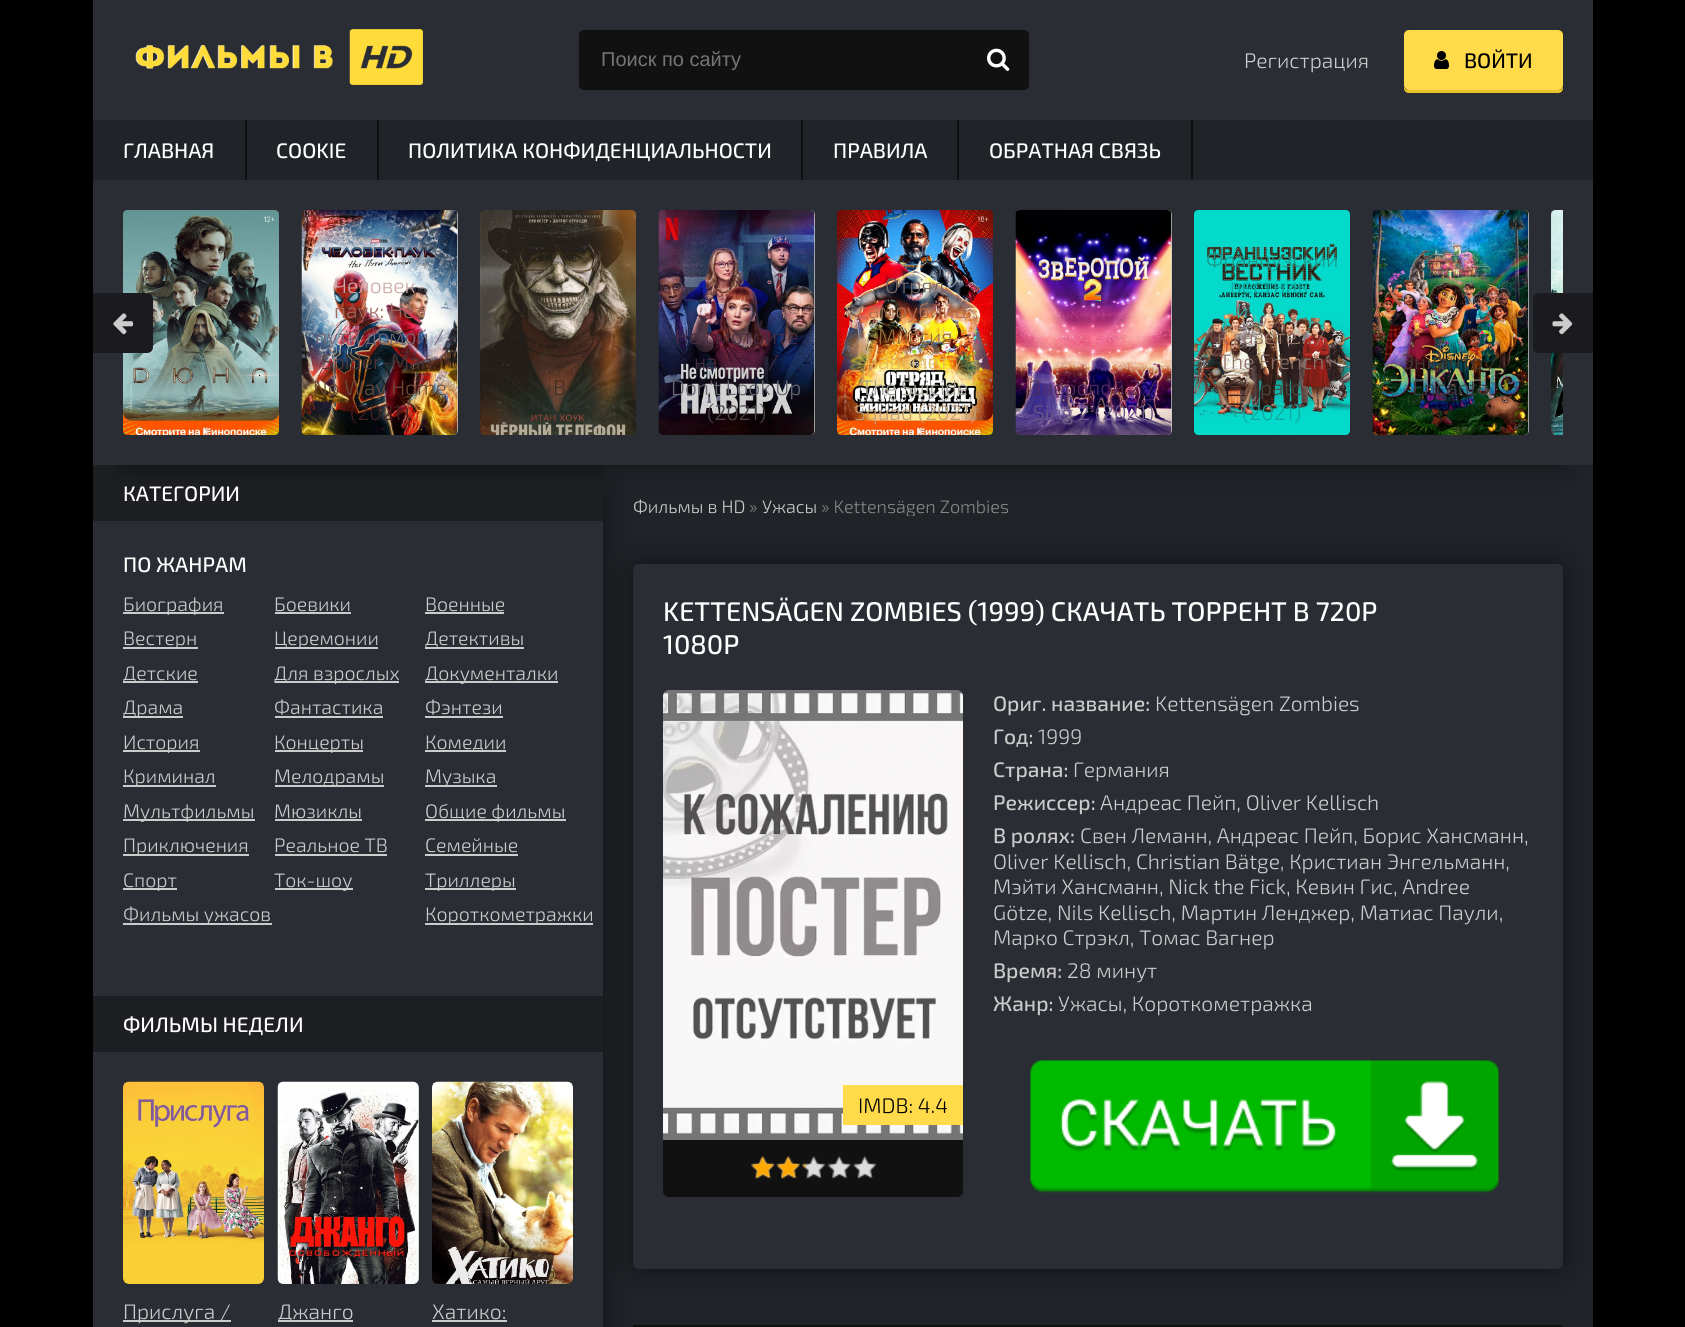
import math
import cairo

surface = cairo.ImageSurface(cairo.Format.RGB24, 1685, 1327)
ctx = cairo.Context(surface)
options = cairo.FontOptions()
options.set_hint_metrics(cairo.HintMetrics.OFF)
options.set_hint_style(cairo.HintStyle.NONE)
ctx.set_font_options(options)
ctx.set_miter_limit(4)


def ink(r, g, b):
    ctx.set_source_rgb(r / 255, g / 255, b / 255)


def write(x, y, s, family, size, color, bold=False, italic=False):
    ctx.select_font_face(family, cairo.FontSlant.ITALIC if italic else cairo.FontSlant.NORMAL, cairo.FontWeight.BOLD if bold else cairo.FontWeight.NORMAL)
    ctx.set_font_size(size)
    ink(*color)
    ctx.move_to(x, y)
    ctx.show_text(s)


def block(x, y, w, h, *color):
    ink(*color)
    ctx.rectangle(x, y, w, h)
    ctx.fill()


def round_path(x, y, w, h, r):
    ctx.new_sub_path()
    for i, (u, v) in enumerate([(x + w - r, y + h - r), (x + r, y + h - r), (x + r, y + r), (x + w - r, y + r)]):
        ctx.arc(u, v, r, i * math.pi / 2, (i + 1) * math.pi / 2)
    ctx.close_path()


def blur_box(x, y, w, h, r, blur, alpha):
    ctx.push_group_with_content(cairo.Content.ALPHA)
    ctx.set_operator(cairo.Operator.SOURCE)
    for i in range(15, -16, -2):
        e = blur * i / 6
        if min(w, h) + 2 * e > 0:
            ctx.set_source_rgba(0, 0, 0, alpha * math.erfc((i - 1) / 8.5) / 2)
            round_path(x - e, y - e, w + 2 * e, h + 2 * e, max(0, min(r + e + blur * .6, min(w, h) / 2 + e)))
            ctx.fill()
    ctx.mask(ctx.pop_group())


def paste(path, x, y, w, h):
    ctx.save()
    ctx.set_source_surface(cairo.ImageSurface.create_from_png(path), x, y)
    ctx.rectangle(x, y, w, h)
    ctx.fill()
    ctx.restore()


s1 = dict(family="Liberation Sans", size=20, color=(117, 117, 117))
s2 = dict(family="Exo 2 Light", size=21, color=(204, 204, 204))
s3 = dict(family="Exo 2 Medium", size=21, color=(0, 0, 0))
s4 = dict(family="Exo 2 Medium", size=21, color=(255, 255, 255))
s5 = dict(family="Exo 2 Light", size=21, color=(204, 170, 170))
s6 = dict(family="Exo 2 Light", size=21, color=(161, 102, 96))
s7 = dict(family="Exo 2 Light", size=21, color=(114, 99, 116))
s8 = dict(family="Exo 2 Light", size=21, color=(81, 54, 54))
s9 = dict(family="Exo 2 Light", size=21, color=(107, 74, 57))
s10 = dict(family="Exo 2 Light", size=21, color=(67, 33, 31))
s11 = dict(family="Exo 2 Light", size=21, color=(60, 48, 36))
s12 = dict(family="Exo 2 Light", size=21, color=(72, 45, 66))
s13 = dict(family="Exo 2 Light", size=21, color=(103, 103, 111))
s14 = dict(family="Exo 2 Light", size=21, color=(76, 69, 72))
s15 = dict(family="Exo 2 Light", size=21, color=(115, 100, 99))
s16 = dict(family="Exo 2 Light", size=21, color=(175, 112, 83))
s17 = dict(family="Exo 2 Light", size=21, color=(152, 108, 56))
s18 = dict(family="Exo 2 Light", size=21, color=(227, 186, 94))
s19 = dict(family="Exo 2 Light", size=21, color=(163, 160, 146))
s20 = dict(family="Exo 2 Light", size=21, color=(193, 159, 116))
s21 = dict(family="Exo 2 Light", size=21, color=(82, 44, 96))
s22 = dict(family="Exo 2 Light", size=21, color=(107, 86, 135))
s23 = dict(family="Exo 2 Light", size=21, color=(25, 152, 138))
s24 = dict(family="Exo 2 Light", size=21, color=(10, 170, 159))
s25 = dict(family="Exo 2 Light", size=21, color=(49, 182, 167))
s26 = dict(family="Exo 2 Light", size=21, color=(150, 117, 103))
s27 = dict(family="Exo 2 Light", size=21, color=(141, 114, 105))
s28 = dict(family="Exo 2 Light", size=21, color=(70, 71, 63))
s29 = dict(family="Exo 2 Light", size=21, color=(22, 168, 157))
s30 = dict(family="Exo 2 Light", size=21, color=(67, 56, 47))
s31 = dict(family="Exo 2 Light", size=21, color=(52, 67, 71))
s32 = dict(family="Exo 2 Light", size=19.5, color=(204, 204, 204))
s33 = dict(family="Exo 2 Light", size=18, color=(204, 204, 204))
s34 = dict(family="Exo 2 Light", size=18, color=(136, 136, 136))
s35 = dict(family="Exo 2 Medium", size=27, color=(255, 255, 255))
s36 = dict(family="Exo 2 Medium", size=21, color=(204, 204, 204))
s37 = dict(family="Exo 2 Light", size=21, color=(0, 0, 0))

ink(0, 0, 0)
ctx.paint()
block(93, 120, 1500, 1207, 32, 35, 40)
block(93, 0, 1500, 120, 42, 45, 52)
paste("pic1.png", 135, 29, 288, 56)
ink(17, 17, 17)
round_path(580, 31, 448, 58, 4)
ctx.fill_preserve()
ctx.stroke()
write(601, 66, "Поиск по сайту", **s1)
paste("pic2.png", 987, 48, 23, 23)
write(1244, 68, "Регистрация", **s2)
ink(232, 194, 41)
ctx.new_path()
ctx.move_to(1404, 86)
ctx.line_to(1404, 88)
ctx.curve_to(1404, 91, 1406, 93, 1409, 93)
ctx.line_to(1558, 93)
ctx.curve_to(1561, 93, 1563, 91, 1563, 88)
ctx.line_to(1563, 86)
ctx.curve_to(1563, 88, 1561, 90, 1558, 90)
ctx.line_to(1408, 90)
ctx.curve_to(1406, 90, 1404, 88, 1404, 86)
ctx.close_path()
ctx.fill()
ink(255, 219, 76)
round_path(1404, 30, 159, 60, 5)
ctx.fill()
paste("pic3.png", 1434, 51, 15, 18)
write(1464, 68, "ВОЙТИ", **s3)
block(245, 120, 2, 60, 17, 17, 17)
write(123, 158, "ГЛАВНАЯ", **s4)
block(377, 120, 2, 60, 17, 17, 17)
write(276, 158, "COOKIE", **s4)
block(801, 120, 2, 60, 17, 17, 17)
write(408, 158, "ПОЛИТИКА КОНФИДЕНЦИАЛЬНОСТИ", **s4)
block(957, 120, 2, 60, 17, 17, 17)
write(833, 158, "ПРАВИЛА", **s4)
block(1191, 120, 2, 60, 17, 17, 17)
write(989, 158, "ОБРАТНАЯ СВЯЗЬ", **s4)
ink(0, 0, 0)
blur_box(633, 564, 930, 705, 6, 15, 0.5)
ink(42, 45, 52)
round_path(633, 564, 930, 705, 6)
ctx.fill()
block(633, 1325, 930, 2, 17, 17, 17)
ink(0, 0, 0)
blur_box(153, 495, 450, 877, 0, 15, 0.5)
block(93, 465, 510, 56, 30, 31, 35)
ink(0, 0, 0)
blur_box(123, 240, 1440, 225, 0, 15, 0.5)
block(93, 180, 1500, 285, 42, 45, 52)
paste("pic4.png", 123, 210, 156, 225)
ink(204, 204, 204)
round_path(302, 210, 156, 225, 5)
ctx.fill()
paste("pic5.png", 301, 210, 157, 225)
write(334, 293, "Человек-", **s5)
write(334, 318, "паук: Нет", **s6)
write(315, 344, "пути домой /", **s7)
write(321, 369, "Spider-Man:", **s8)
write(313, 395, "No Way Home", **s9)
write(350, 420, "(2021)", **s10)
paste("pic6.png", 480, 210, 156, 225)
write(553, 395, "B", **s11)
ink(204, 204, 204)
round_path(659, 210, 156, 225, 5)
ctx.fill()
paste("pic7.png", 658, 210, 157, 225)
write(675, 344, "Не смотрите", **s12)
write(694, 369, "на", **s12)
write(768, 369, "/", **s12)
write(671, 395, "Don't Look Up", **s13)
write(707, 420, "(2021)", **s14)
paste("pic8.png", 837, 210, 156, 225)
write(885, 293, "Отряд", **s15)
write(858, 318, "самоубийц:", **s16)
write(878, 344, "Миссия", **s17)
write(866, 369, "навылет /", **s18)
write(861, 395, "The Suicide", **s19)
write(854, 420, "Squad (2021)", **s20)
ink(204, 204, 204)
round_path(1016, 210, 156, 225, 5)
ctx.fill()
paste("pic9.png", 1015, 210, 157, 225)
write(1030, 395, "Зверопой 2 /", **s21)
write(1033, 420, "Sing 2 (2021)", **s22)
paste("pic10.png", 1194, 210, 156, 225)
write(1206, 267, "Французский", **s23)
write(1230, 293, "вестник.", **s24)
write(1236, 318, "и", **s25)
write(1217, 344, "к газете... /", **s26)
write(1219, 369, "The French", **s27)
write(1260, 395, "patc", **s28)
write(1242, 420, "(2021)", **s29)
ink(204, 204, 204)
round_path(1373, 210, 156, 225, 5)
ctx.fill()
paste("pic11.png", 1372, 210, 157, 225)
write(1402, 369, "Энканто /", **s30)
write(1412, 395, "Encanto", **s31)
paste("pic12.png", 1551, 210, 12, 225)
ink(27, 27, 31)
ctx.new_path()
ctx.move_to(93, 293)
ctx.line_to(147, 293)
ctx.curve_to(150.5, 293, 153, 295.5, 153, 299)
ctx.line_to(153, 347)
ctx.curve_to(153, 350.5, 150.5, 353, 147, 353)
ctx.line_to(93, 353)
ctx.close_path()
ctx.fill()
paste("pic13.png", 113, 313, 21, 22)
ctx.new_path()
ctx.move_to(1539, 293)
ctx.line_to(1593, 293)
ctx.line_to(1593, 353)
ctx.line_to(1539, 353)
ctx.curve_to(1535.5, 353, 1533, 350.5, 1533, 347)
ctx.line_to(1533, 299)
ctx.curve_to(1533, 295.5, 1535.5, 293, 1539, 293)
ctx.close_path()
ctx.fill()
paste("pic14.png", 1552, 313, 21, 22)
block(93, 521, 510, 806, 42, 45, 52)
write(123, 501, "КАТЕГОРИИ", **s4)
write(123, 572, "ПО ЖАНРАМ", **s4)
block(123, 612, 101, 2, 204, 204, 204)
write(123, 611, "Биография", **s32)
write(274, 611, "Боевики", **s32)
block(275, 612, 76, 2, 204, 204, 204)
write(425, 611, "Военные", **s32)
block(425, 612, 79, 2, 204, 204, 204)
block(123, 647, 75, 2, 204, 204, 204)
write(123, 645, "Вестерн", **s32)
block(275, 647, 103, 2, 204, 204, 204)
write(274, 645, "Церемонии", **s32)
block(425, 647, 99, 2, 204, 204, 204)
write(425, 645, "Детективы", **s32)
block(123, 681, 75, 2, 204, 204, 204)
write(123, 680, "Детские", **s32)
block(275, 681, 124, 2, 204, 204, 204)
write(274, 680, "Для взрослых", **s32)
block(425, 681, 133, 2, 204, 204, 204)
write(425, 680, "Документалки", **s32)
block(123, 716, 60, 2, 204, 204, 204)
write(123, 714, "Драма", **s32)
write(274, 714, "Фантастика", **s32)
block(275, 716, 108, 2, 204, 204, 204)
write(425, 714, "Фэнтези", **s32)
block(425, 716, 78, 2, 204, 204, 204)
block(123, 750, 77, 2, 204, 204, 204)
write(123, 749, "История", **s32)
block(275, 750, 88, 2, 204, 204, 204)
write(274, 749, "Концерты", **s32)
block(425, 750, 81, 2, 204, 204, 204)
write(425, 749, "Комедии", **s32)
block(123, 785, 93, 2, 204, 204, 204)
write(123, 783, "Криминал", **s32)
block(275, 785, 109, 2, 204, 204, 204)
write(274, 783, "Мелодрамы", **s32)
block(425, 785, 72, 2, 204, 204, 204)
write(425, 783, "Музыка", **s32)
block(123, 819, 132, 2, 204, 204, 204)
write(123, 818, "Мультфильмы", **s32)
write(274, 818, "Мюзиклы", **s32)
block(275, 819, 87, 2, 204, 204, 204)
block(425, 819, 141, 2, 204, 204, 204)
write(425, 818, "Общие фильмы", **s32)
block(123, 854, 126, 2, 204, 204, 204)
write(123, 852, "Приключения", **s32)
write(274, 852, "Реальное ТВ", **s32)
block(275, 854, 112, 2, 204, 204, 204)
write(425, 852, "Семейные", **s32)
block(425, 854, 93, 2, 204, 204, 204)
block(123, 888, 54, 2, 204, 204, 204)
write(123, 887, "Спорт", **s32)
block(275, 888, 78, 2, 204, 204, 204)
write(274, 887, "Ток-шоу", **s32)
block(425, 888, 91, 2, 204, 204, 204)
write(425, 887, "Триллеры", **s32)
block(123, 923, 149, 2, 204, 204, 204)
write(123, 921, "Фильмы ужасов", **s32)
block(425, 923, 168, 2, 204, 204, 204)
write(425, 921, "Короткометражки", **s32)
block(93, 996, 510, 56, 30, 31, 35)
write(123, 1032, "ФИЛЬМЫ НЕДЕЛИ", **s4)
paste("pic15.png", 123, 1081, 141, 203)
block(123, 1320, 108, 2, 204, 204, 204)
write(123, 1319, "Прислуга /", **s2)
round_path(278, 1082, 141, 202, 6)
ctx.fill()
paste("pic16.png", 277, 1081, 142, 203)
block(278, 1320, 75, 2, 204, 204, 204)
write(278, 1319, "Джанго", **s2)
paste("pic17.png", 432, 1081, 141, 203)
write(432, 1319, "Хатико:", **s2)
block(432, 1320, 75, 2, 204, 204, 204)
write(633, 513, "Фильмы в HD", **s33)
write(749, 513, "»", **s34)
write(762, 513, "Ужасы", **s33)
ctx.save()
ctx.rectangle(633, 495, 930, 21)
ctx.clip()
write(821, 513, "» Kettensägen Zombies", **s34)
ctx.restore()
write(663, 621, "KETTENSÄGEN ZOMBIES (1999) СКАЧАТЬ ТОРРЕНТ В 720P", **s35)
write(663, 654, "1080P", **s35)
write(993, 711, "Ориг. название:", **s36)
write(1155, 711, "Kettensägen Zombies", **s2)
write(993, 744, "Год:", **s36)
write(1038, 744, "1999", **s2)
write(993, 777, "Страна:", **s36)
write(1073, 777, "Германия", **s2)
write(993, 810, "Режиссер:", **s36)
write(1100, 810, "Андреас Пейп, Oliver Kellisch", **s2)
write(993, 843, "В ролях:", **s36)
write(1080, 843, "Свен Леманн, Андреас Пейп, Борис Хансманн,", **s2)
write(993, 869, "Oliver Kellisch, Christian Bätge, Кристиан Энгельманн,", **s2)
write(993, 894, "Мэйти Хансманн, Nick the Fick, Кевин Гис, Andree", **s2)
write(993, 920, "Götze, Nils Kellisch, Мартин Ленджер, Матиас Паули,", **s2)
write(993, 945, "Марко Стрэкл, Томас Вагнер", **s2)
write(993, 978, "Время:", **s36)
write(1067, 978, "28 минут", **s2)
write(993, 1011, "Жанр:", **s36)
write(1058, 1011, "Ужасы, Короткометражка", **s2)
paste("pic18.png", 1030, 1060, 469, 133)
paste("pic19.png", 663, 690, 300, 450)
block(843, 1085, 120, 40, 255, 219, 76)
write(858, 1113, "IMDB: 4.4", **s37)
ink(17, 17, 17)
ctx.new_path()
ctx.move_to(663, 1140)
ctx.line_to(963, 1140)
ctx.line_to(963, 1191)
ctx.curve_to(963, 1194.5, 960.5, 1197, 957, 1197)
ctx.line_to(669, 1197)
ctx.curve_to(665.5, 1197, 663, 1194.5, 663, 1191)
ctx.close_path()
ctx.fill()
paste("pic20.png", 751, 1156, 126, 23)
paste("pic21.png", 751, 1156, 55, 23)
surface.write_to_png("screenshot.png")
